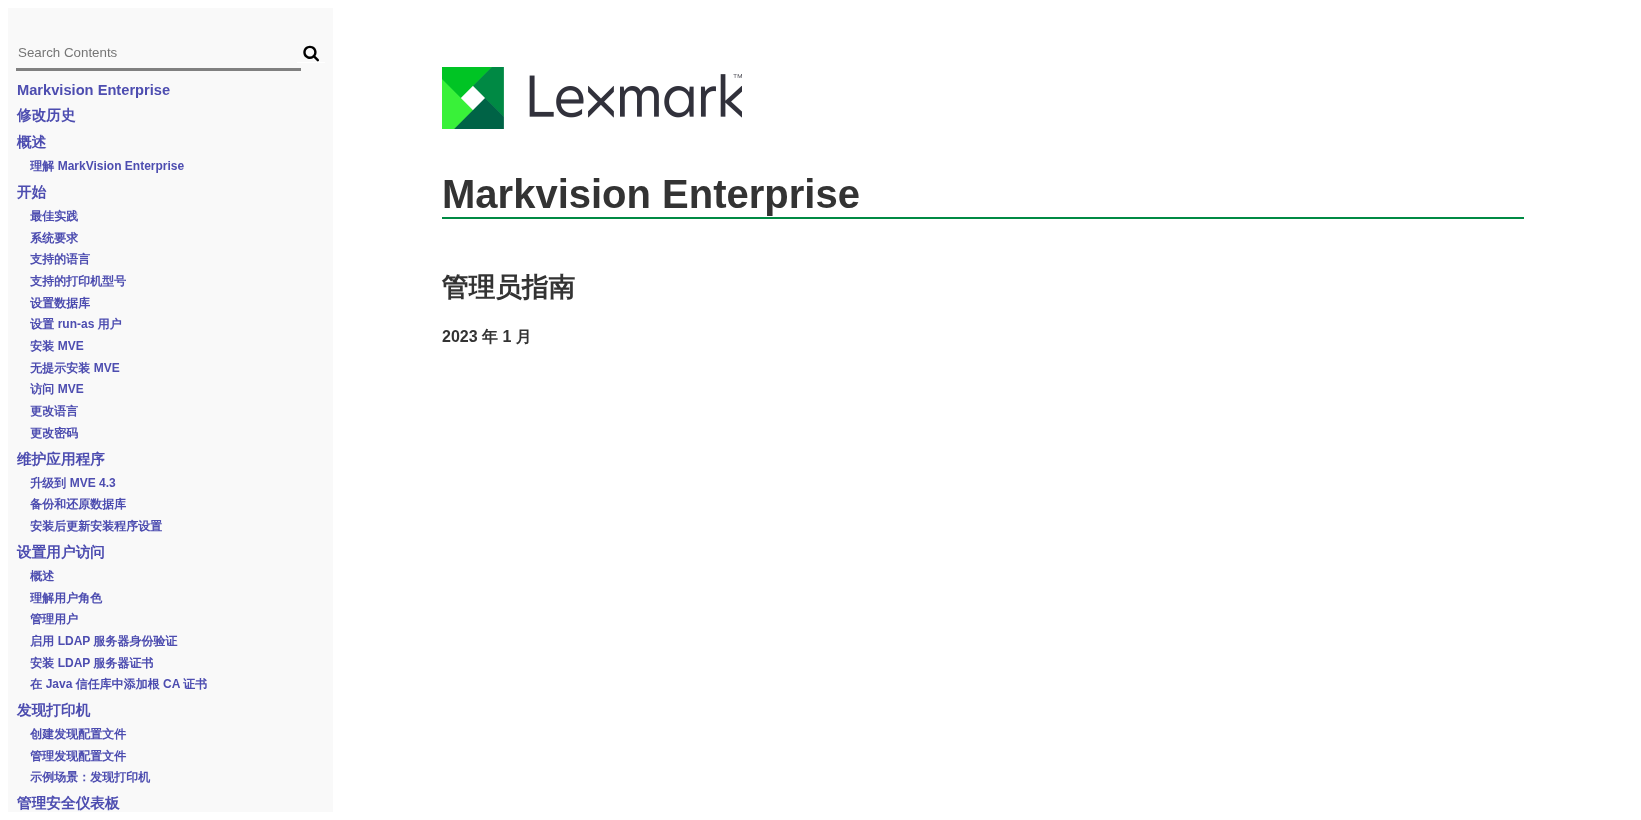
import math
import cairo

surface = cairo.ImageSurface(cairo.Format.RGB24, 1641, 820)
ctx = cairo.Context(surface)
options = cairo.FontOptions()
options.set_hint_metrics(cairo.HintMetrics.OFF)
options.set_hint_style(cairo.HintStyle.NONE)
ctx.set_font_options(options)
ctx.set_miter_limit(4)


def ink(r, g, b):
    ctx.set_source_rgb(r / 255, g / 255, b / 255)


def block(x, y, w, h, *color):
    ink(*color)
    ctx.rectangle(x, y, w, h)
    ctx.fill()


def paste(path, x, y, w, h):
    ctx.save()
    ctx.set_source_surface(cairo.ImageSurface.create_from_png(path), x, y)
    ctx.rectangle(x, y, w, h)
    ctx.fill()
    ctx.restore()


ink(255, 255, 255)
ctx.paint()
block(8, 8, 325, 804, 249, 249, 249)
paste("pic1.png", 16, 45, 309, 766)
paste("pic2.png", 441, 67, 1083, 278)
surface.write_to_png("screenshot.png")
